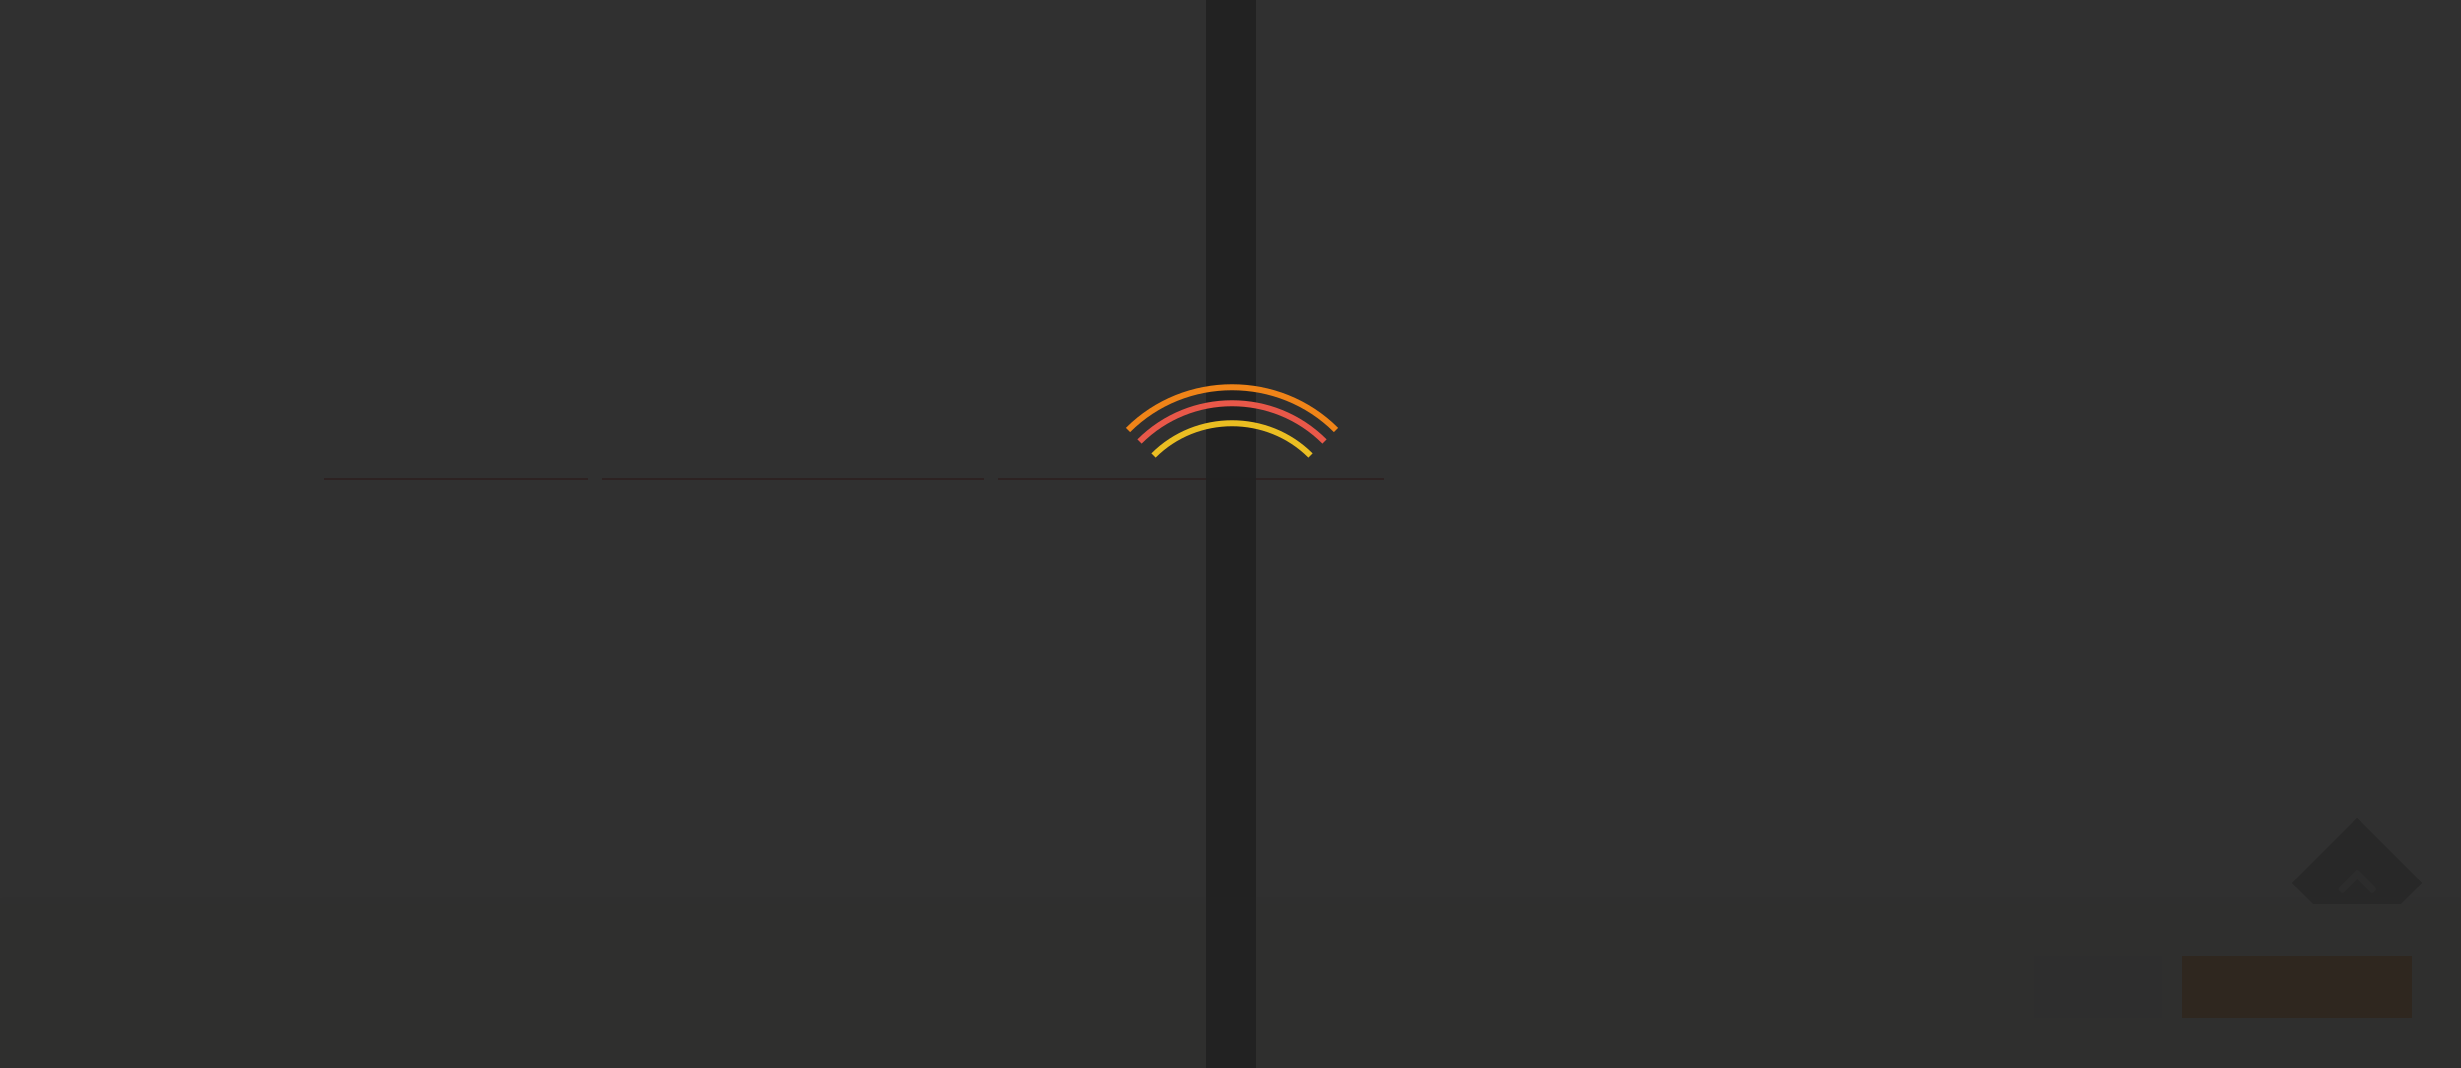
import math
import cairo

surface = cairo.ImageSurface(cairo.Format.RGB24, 2461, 1068)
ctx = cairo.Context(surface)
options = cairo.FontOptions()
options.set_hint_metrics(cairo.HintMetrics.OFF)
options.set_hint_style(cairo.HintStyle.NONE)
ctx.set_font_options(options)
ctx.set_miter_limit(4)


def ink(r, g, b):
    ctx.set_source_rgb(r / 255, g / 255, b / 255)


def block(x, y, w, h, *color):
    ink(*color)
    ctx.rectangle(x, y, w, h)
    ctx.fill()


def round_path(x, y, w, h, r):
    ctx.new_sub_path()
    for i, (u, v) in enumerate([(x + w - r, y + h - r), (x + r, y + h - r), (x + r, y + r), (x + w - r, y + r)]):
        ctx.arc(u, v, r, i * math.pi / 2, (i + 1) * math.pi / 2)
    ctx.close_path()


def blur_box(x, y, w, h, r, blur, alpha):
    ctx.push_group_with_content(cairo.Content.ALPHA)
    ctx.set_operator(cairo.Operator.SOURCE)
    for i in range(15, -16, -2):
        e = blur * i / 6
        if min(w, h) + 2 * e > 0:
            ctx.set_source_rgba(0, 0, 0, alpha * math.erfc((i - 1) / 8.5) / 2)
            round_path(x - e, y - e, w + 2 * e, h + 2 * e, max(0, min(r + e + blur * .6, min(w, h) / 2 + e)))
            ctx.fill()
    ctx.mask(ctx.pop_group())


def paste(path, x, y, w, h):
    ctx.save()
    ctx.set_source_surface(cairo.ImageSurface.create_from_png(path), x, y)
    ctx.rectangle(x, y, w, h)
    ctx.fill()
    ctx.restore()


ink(255, 255, 255)
ctx.paint()
block(324, 478, 264, 2, 204, 51, 51)
block(602, 478, 382, 2, 204, 51, 51)
block(998, 478, 386, 2, 204, 51, 51)
ink(128, 128, 128)
ctx.new_path()
ctx.move_to(2357, 818)
ctx.line_to(2422, 883)
ctx.line_to(2357, 948)
ctx.line_to(2292, 883)
ctx.close_path()
ctx.fill()
ctx.set_fill_rule(cairo.FillRule.EVEN_ODD)
ctx.new_path()
ctx.move_to(2357, 818)
ctx.line_to(2353, 822)
ctx.line_to(2361, 822)
ctx.close_path()
ctx.move_to(2418, 879)
ctx.line_to(2422, 883)
ctx.line_to(2418, 887)
ctx.close_path()
ctx.move_to(2361, 944)
ctx.line_to(2357, 948)
ctx.line_to(2353, 944)
ctx.close_path()
ctx.move_to(2296, 887)
ctx.line_to(2292, 883)
ctx.line_to(2296, 879)
ctx.close_path()
ctx.fill()
paste("pic1.png", 2338, 870, 38, 23)
ink(172, 171, 171)
blur_box(0, 902, 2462, 164, 0, 10, 0.3)
block(0, 904, 2461, 164, 245, 244, 224)
ctx.set_source_rgba(0.133, 0.133, 0.133, 0.93)
ctx.rectangle(0, 0, 1256, 1068)
ctx.fill()
block(2034, 956, 128, 62, 222, 223, 224)
block(2182, 956, 230, 62, 239, 123, 7)
ctx.set_source_rgba(0.133, 0.133, 0.133, 0.93)
ctx.rectangle(1206, 0, 1255, 1068)
ctx.fill()
ctx.new_path()
ctx.move_to(1128, 430)
ctx.curve_to(1185, 373, 1279, 373, 1336, 430)
ink(240, 132, 24)
ctx.set_line_width(6)
ctx.stroke()
ctx.new_path()
ctx.move_to(1139.5, 441.5)
ctx.curve_to(1190.5, 390.5, 1273.5, 390.5, 1324.5, 441.5)
ink(233, 88, 73)
ctx.stroke()
ctx.new_path()
ctx.move_to(1153.5, 455.5)
ctx.curve_to(1196.5, 412.5, 1267.5, 412.5, 1310.5, 455.5)
ctx.set_source_rgba(0.976, 0.788, 0.133, 0.93)
ctx.stroke()
surface.write_to_png("screenshot.png")
